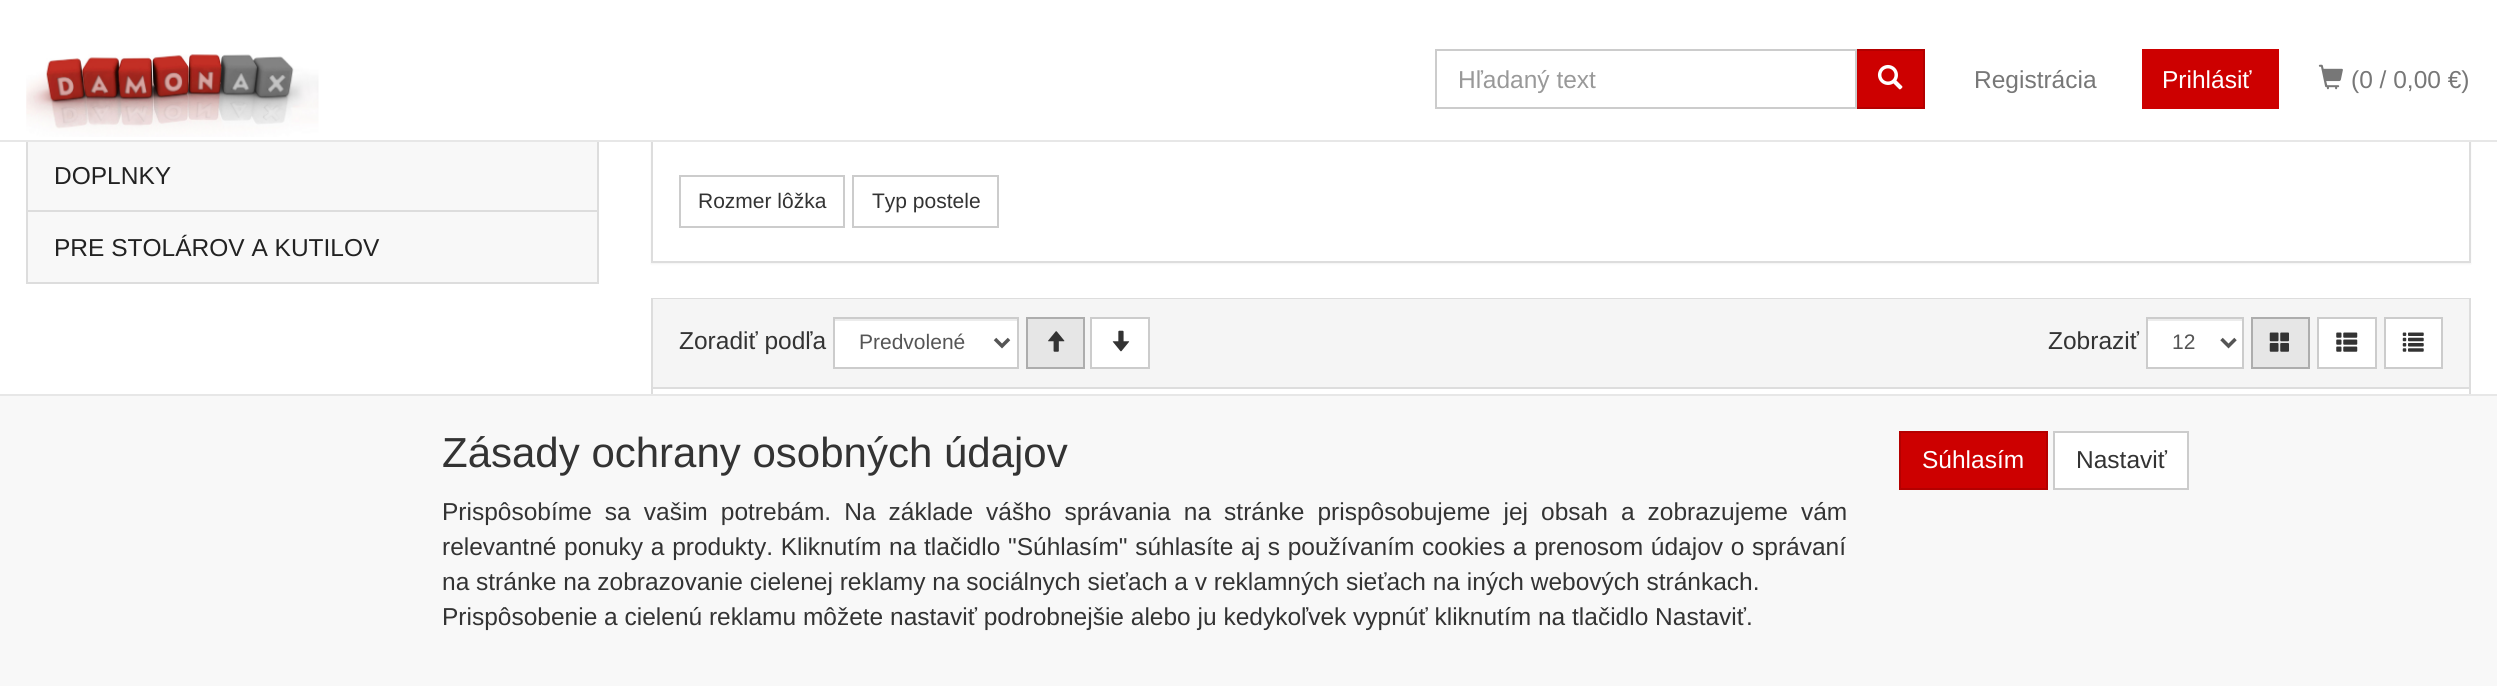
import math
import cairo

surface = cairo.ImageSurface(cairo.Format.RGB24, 2497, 686)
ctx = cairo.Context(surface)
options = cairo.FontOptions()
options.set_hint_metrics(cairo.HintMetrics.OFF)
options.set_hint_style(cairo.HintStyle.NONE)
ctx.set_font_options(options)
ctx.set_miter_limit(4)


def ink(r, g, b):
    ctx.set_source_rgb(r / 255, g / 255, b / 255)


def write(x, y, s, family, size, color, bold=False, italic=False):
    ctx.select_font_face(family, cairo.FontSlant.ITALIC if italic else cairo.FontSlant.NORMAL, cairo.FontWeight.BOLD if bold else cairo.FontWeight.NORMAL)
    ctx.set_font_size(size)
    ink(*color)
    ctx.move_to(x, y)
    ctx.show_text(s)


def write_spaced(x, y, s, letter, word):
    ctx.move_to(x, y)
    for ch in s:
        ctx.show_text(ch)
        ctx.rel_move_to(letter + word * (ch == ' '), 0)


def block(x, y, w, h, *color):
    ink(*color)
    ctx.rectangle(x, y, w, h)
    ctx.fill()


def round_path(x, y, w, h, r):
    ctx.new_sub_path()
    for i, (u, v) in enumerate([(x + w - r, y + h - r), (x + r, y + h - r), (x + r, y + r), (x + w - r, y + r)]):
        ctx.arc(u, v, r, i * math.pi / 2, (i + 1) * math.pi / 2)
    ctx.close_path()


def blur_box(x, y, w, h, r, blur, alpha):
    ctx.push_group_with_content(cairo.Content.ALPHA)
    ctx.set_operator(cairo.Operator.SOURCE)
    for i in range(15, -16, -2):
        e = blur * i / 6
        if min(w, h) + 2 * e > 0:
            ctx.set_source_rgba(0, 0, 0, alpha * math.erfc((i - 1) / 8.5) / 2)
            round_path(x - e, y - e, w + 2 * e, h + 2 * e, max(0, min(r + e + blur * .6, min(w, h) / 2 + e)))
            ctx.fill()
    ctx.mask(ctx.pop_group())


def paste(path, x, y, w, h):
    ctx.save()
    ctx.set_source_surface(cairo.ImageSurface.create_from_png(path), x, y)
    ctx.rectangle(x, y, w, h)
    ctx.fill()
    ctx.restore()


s1 = dict(family="Liberation Sans", size=24.5, color=(153, 153, 153))
s2 = dict(family="Liberation Sans", size=24.5, color=(119, 119, 119))
s3 = dict(family="Liberation Sans", size=24.5, color=(255, 255, 255))
s4 = dict(family="Liberation Sans", size=24.5, color=(34, 34, 34))
s5 = dict(family="Liberation Sans", size=21, color=(51, 51, 51))
s6 = dict(family="Liberation Sans", size=24.5, color=(51, 51, 51))
s7 = dict(family="Liberation Sans", size=21, color=(85, 85, 85))
s8 = dict(family="Liberation Sans", size=42, color=(51, 51, 51))

ink(255, 255, 255)
ctx.paint()
block(28, 142, 569, 140, 248, 248, 248)
ctx.rectangle(27, 139, 571, 72)
ink(221, 221, 221)
ctx.stroke()
ink(0, 0, 0)
blur_box(651, -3, 1820, 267, 0, 1, 0.05)
block(653, 142, 1816, 119, 255, 255, 255)
ctx.rectangle(652, -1, 1818, 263)
ink(221, 221, 221)
ctx.stroke()
block(26, 0, 2446, 140, 255, 255, 255)
block(0, 140, 2497, 2, 231, 231, 231)
paste("pic1.png", 26, 54, 293, 83)
ink(205, 0, 0)
ctx.rectangle(1856, 50, 68, 58)
ctx.fill_preserve()
ink(180, 0, 0)
ctx.stroke()
ctx.rectangle(1436, 50, 420, 58)
ink(204, 204, 204)
ctx.stroke()
write(1458, 88, "Hľadaný text", **s1)
paste("pic2.png", 1877, 64, 26, 26)
write(1974, 88, "Registrácia", **s2)
block(2142, 49, 137, 60, 205, 0, 0)
write(2162, 88, "Prihlásiť", **s3)
paste("pic3.png", 2318, 64, 25, 26)
write(2351, 88, "(0 / 0,00 €)", **s2)
write(54, 184, "DOPLNKY", **s4)
ctx.rectangle(27, 211, 571, 72)
ink(221, 221, 221)
ctx.stroke()
write(54, 256, "PRE STOLÁROV A KUTILOV", **s4)
ctx.rectangle(680, 176, 164, 51)
ink(204, 204, 204)
ctx.stroke()
write(698, 208, "Rozmer lôžka", **s5)
ctx.rectangle(853, 176, 145, 51)
ink(204, 204, 204)
ctx.stroke()
write(872, 208, "Typ postele", **s5)
ctx.rectangle(652, 299, 1818, 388)
ink(221, 221, 221)
ctx.stroke()
block(653, 299, 1816, 88, 245, 245, 245)
block(653, 387, 1816, 2, 221, 221, 221)
write(679, 349, "Zoradiť podľa", **s6)
block(835, 321, 182, 46, 255, 255, 255)
block(835, 319, 182, 2, 236, 236, 236)
ctx.rectangle(834, 318, 184, 50)
ink(204, 204, 204)
ctx.stroke()
ctx.new_path()
ctx.move_to(995, 339)
ctx.line_to(1002, 346)
ctx.line_to(1009, 339)
ink(85, 85, 85)
ctx.set_line_width(3.5)
ctx.stroke()
write(859, 349, "Predvolené", **s7)
ink(230, 230, 230)
ctx.rectangle(1027, 318, 57, 50)
ctx.fill_preserve()
ink(173, 173, 173)
ctx.set_line_width(2)
ctx.stroke()
paste("pic4.png", 1048, 331, 17, 21)
ink(255, 255, 255)
ctx.rectangle(1091, 318, 58, 50)
ctx.fill_preserve()
ink(204, 204, 204)
ctx.stroke()
paste("pic5.png", 1112, 330, 18, 22)
write(2048, 349, "Zobraziť", **s6)
block(2148, 321, 94, 46, 255, 255, 255)
block(2147, 319, 95, 2, 236, 236, 236)
ctx.rectangle(2147, 318, 96, 50)
ink(204, 204, 204)
ctx.stroke()
ctx.new_path()
ctx.move_to(2221.5, 339)
ctx.line_to(2228.5, 346)
ctx.line_to(2235.5, 339)
ink(85, 85, 85)
ctx.set_line_width(3.5)
ctx.stroke()
write(2172, 349, "12", **s7)
ink(230, 230, 230)
ctx.rectangle(2252, 318, 57, 50)
ctx.fill_preserve()
ink(173, 173, 173)
ctx.set_line_width(2)
ctx.stroke()
paste("pic6.png", 2269, 332, 20, 20)
ink(255, 255, 255)
ctx.rectangle(2318, 318, 58, 50)
ctx.fill_preserve()
ink(204, 204, 204)
ctx.stroke()
paste("pic7.png", 2336, 332, 22, 20)
ink(255, 255, 255)
ctx.rectangle(2385, 318, 57, 50)
ctx.fill_preserve()
ink(204, 204, 204)
ctx.stroke()
paste("pic8.png", 2402, 332, 22, 20)
block(0, 396, 2497, 290, 248, 248, 248)
block(0, 394, 2497, 2, 231, 231, 231)
write(442, 467, "Zásady ochrany osobných údajov", **s8)
ctx.set_font_size(24.5)
write_spaced(442, 520, "Prispôsobíme sa vašim potrebám. Na základe vášho správania na stránke prispôsobujeme jej obsah a zobrazujeme vám", 0, 6.25)
write_spaced(442, 555, "relevantné ponuky a produkty. Kliknutím na tlačidlo \"Súhlasím\" súhlasíte aj s používaním cookies a prenosom údajov o správaní", 0, 0.9)
write(442, 590, "na stránke na zobrazovanie cielenej reklamy na sociálnych sieťach a v reklamných sieťach na iných webových stránkach.", **s6)
write(442, 625, "Prispôsobenie a cielenú reklamu môžete nastaviť podrobnejšie alebo ju kedykoľvek vypnúť kliknutím na tlačidlo Nastaviť.", **s6)
ink(205, 0, 0)
ctx.rectangle(1900, 432, 147, 57)
ctx.fill_preserve()
ink(180, 0, 0)
ctx.stroke()
write(1922, 468, "Súhlasím", **s3)
ctx.rectangle(2054, 432, 134, 57)
ctx.fill_preserve()
ink(204, 204, 204)
ctx.stroke()
write(2076, 468, "Nastaviť", **s6)
surface.write_to_png("screenshot.png")
